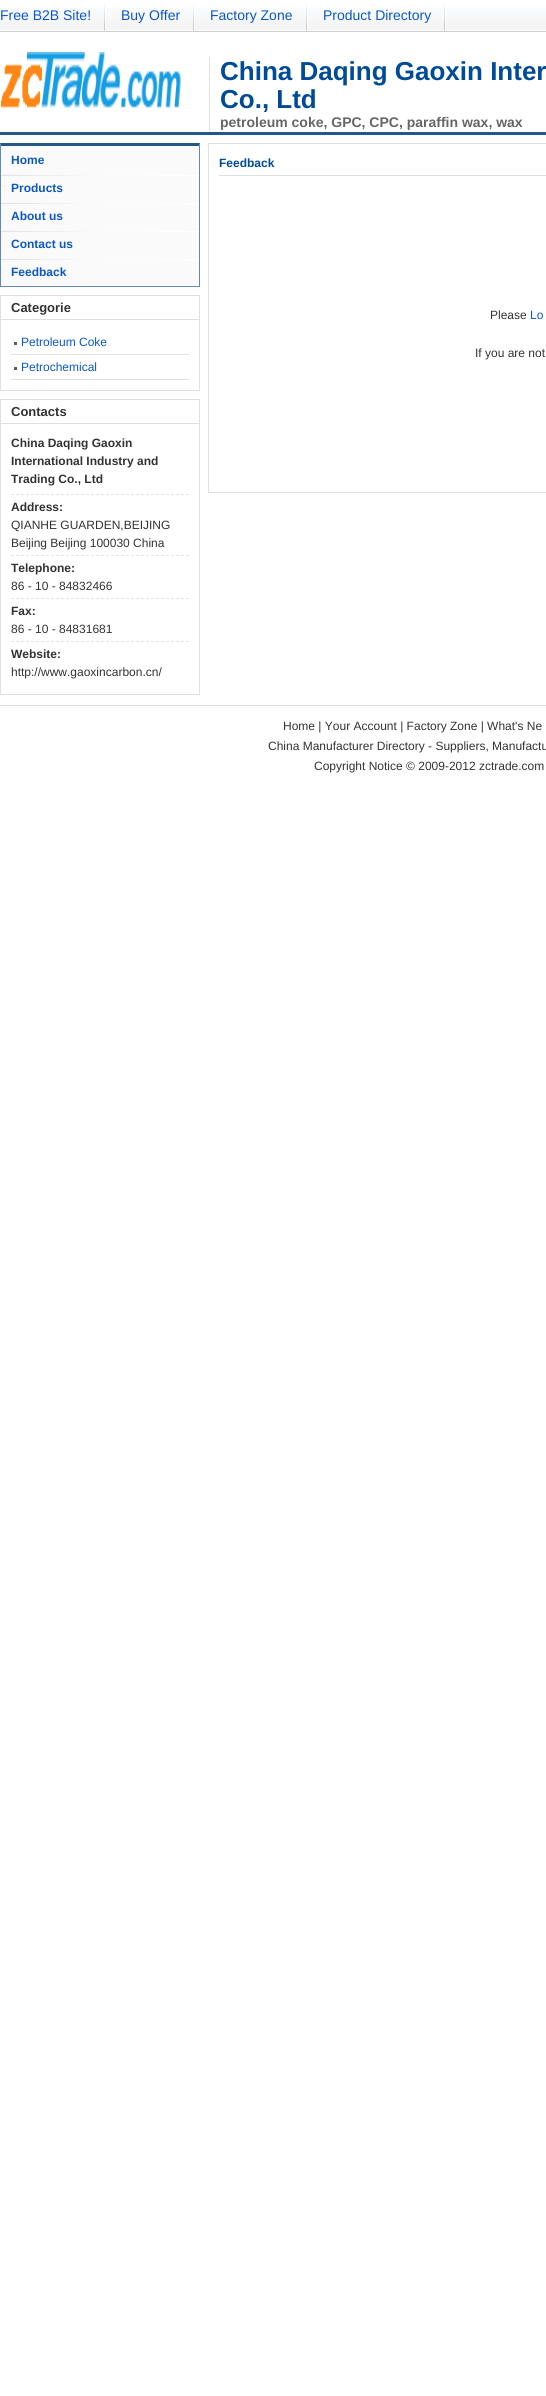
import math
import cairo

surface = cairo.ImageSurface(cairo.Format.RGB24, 546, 2396)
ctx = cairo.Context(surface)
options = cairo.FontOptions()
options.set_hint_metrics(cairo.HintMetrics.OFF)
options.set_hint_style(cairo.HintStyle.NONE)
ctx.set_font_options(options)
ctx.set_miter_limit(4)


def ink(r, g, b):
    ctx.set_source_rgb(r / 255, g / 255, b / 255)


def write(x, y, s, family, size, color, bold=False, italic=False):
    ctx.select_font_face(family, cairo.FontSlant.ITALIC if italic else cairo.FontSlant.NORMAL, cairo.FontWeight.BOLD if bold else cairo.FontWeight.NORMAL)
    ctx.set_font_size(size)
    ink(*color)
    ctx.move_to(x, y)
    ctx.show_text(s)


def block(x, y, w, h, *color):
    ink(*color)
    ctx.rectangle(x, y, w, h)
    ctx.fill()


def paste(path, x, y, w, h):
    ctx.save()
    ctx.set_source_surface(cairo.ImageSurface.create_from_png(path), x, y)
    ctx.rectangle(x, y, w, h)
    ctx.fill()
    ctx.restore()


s1 = dict(family="Liberation Sans", size=14, color=(11, 87, 201))
s2 = dict(family="Liberation Sans", size=26, color=(0, 75, 152), bold=True)
s3 = dict(family="Liberation Sans", size=14, color=(102, 102, 102), bold=True)
s4 = dict(family="Liberation Sans", size=12, color=(11, 87, 201), bold=True)
s5 = dict(family="Liberation Sans", size=13, color=(51, 51, 51), bold=True)
s6 = dict(family="Liberation Sans", size=12, color=(11, 87, 201))
s7 = dict(family="Liberation Sans", size=12, color=(51, 51, 51), bold=True)
s8 = dict(family="Liberation Sans", size=12, color=(51, 51, 51))
s9 = dict(family="Liberation Sans", size=12, color=(0, 75, 152), bold=True)

ink(255, 255, 255)
ctx.paint()
paste("pic1.png", 0, 7, 546, 23)
block(0, 31, 546, 1, 206, 206, 206)
paste("pic2.png", 104, 3, 2, 28)
write(0, 20, "Free B2B Site!", **s1)
paste("pic2.png", 193, 3, 2, 28)
write(121, 20, "Buy Offer", **s1)
paste("pic2.png", 306, 3, 2, 28)
write(210, 20, "Factory Zone", **s1)
paste("pic2.png", 444, 3, 2, 28)
write(323, 20, "Product Directory", **s1)
block(0, 132, 546, 3, 35, 86, 137)
paste("pic3.png", 1, 52, 180, 56)
block(209, 57, 1, 74, 227, 227, 227)
write(220, 80, "China Daqing Gaoxin Inter", **s2)
write(220, 108, "Co., Ltd", **s2)
write(220, 127, "petroleum coke, GPC, CPC, paraffin wax, wax", **s3)
block(1, 146, 198, 140, 250, 250, 250)
ink(35, 86, 137)
ctx.new_path()
ctx.move_to(0, 143)
ctx.line_to(200, 143)
ctx.line_to(199, 146)
ctx.line_to(1, 146)
ctx.close_path()
ctx.fill()
ink(97, 138, 180)
ctx.new_path()
ctx.move_to(200, 143)
ctx.line_to(200, 287)
ctx.line_to(199, 286)
ctx.line_to(199, 146)
ctx.close_path()
ctx.fill()
block(0, 286, 200, 1, 97, 138, 180)
ctx.new_path()
ctx.move_to(0, 287)
ctx.line_to(0, 143)
ctx.line_to(1, 146)
ctx.line_to(1, 286)
ctx.close_path()
ctx.fill()
write(11, 164, "Home", **s4)
paste("pic4.png", 1, 175, 198, 1)
write(11, 192, "Products", **s4)
paste("pic4.png", 1, 203, 198, 1)
write(11, 220, "About us", **s4)
paste("pic4.png", 1, 231, 198, 1)
write(11, 248, "Contact us", **s4)
paste("pic4.png", 1, 259, 198, 1)
write(11, 276, "Feedback", **s4)
ctx.rectangle(0.5, 295.5, 199, 95)
ink(220, 225, 230)
ctx.set_line_width(1)
ctx.stroke()
block(1, 319, 198, 1, 220, 225, 230)
write(11, 312, "Categorie", **s5)
block(14, 342, 3, 3, 93, 93, 93)
block(11, 354, 178, 1, 227, 227, 227)
write(21, 346, "Petroleum Coke", **s6)
block(14, 367, 3, 3, 93, 93, 93)
block(11, 379, 178, 1, 227, 227, 227)
write(21, 371, "Petrochemical", **s6)
ctx.rectangle(0.5, 399.5, 199, 295)
ink(220, 225, 230)
ctx.stroke()
block(1, 423, 198, 1, 220, 225, 230)
write(11, 416, "Contacts", **s5)
write(11, 447, "China Daqing Gaoxin", **s7)
write(11, 465, "International Industry and", **s7)
write(11, 483, "Trading Co., Ltd", **s7)
ctx.new_path()
ctx.move_to(11, 494.5)
ctx.line_to(189, 494.5)
ink(227, 227, 227)
ctx.set_dash([3, 2])
ctx.stroke()
write(11, 511, "Address:", **s7)
write(11, 529, "QIANHE GUARDEN,BEIJING", **s8)
write(11, 547, "Beijing Beijing 100030 China", **s8)
ctx.new_path()
ctx.move_to(11, 555.5)
ctx.line_to(189, 555.5)
ink(227, 227, 227)
ctx.stroke()
write(11, 572, "Telephone:", **s7)
write(11, 590, "86 - 10 - 84832466", **s8)
ctx.new_path()
ctx.move_to(11, 598.5)
ctx.line_to(189, 598.5)
ink(227, 227, 227)
ctx.stroke()
write(11, 615, "Fax:", **s7)
write(11, 633, "86 - 10 - 84831681", **s8)
ctx.new_path()
ctx.move_to(11, 641.5)
ctx.line_to(189, 641.5)
ink(227, 227, 227)
ctx.stroke()
write(11, 658, "Website:", **s7)
write(11, 676, "http://www.gaoxincarbon.cn/", **s8)
ctx.rectangle(208.5, 143.5, 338, 349)
ink(220, 225, 230)
ctx.set_dash([])
ctx.stroke()
block(219, 175, 327, 1, 220, 225, 230)
write(219, 167, "Feedback", **s9)
write(490, 319, "Please", **s8)
write(530, 319, "Lo", **s6)
write(475, 357, "If you are not", **s8)
block(0, 705, 546, 1, 220, 225, 230)
write(283, 730, "Home | Your Account | Factory Zone | What's Ne", **s8)
write(268, 750, "China Manufacturer Directory - Suppliers, Manufactu", **s8)
write(314, 770, "Copyright Notice © 2009-2012 zctrade.com", **s8)
surface.write_to_png("screenshot.png")
